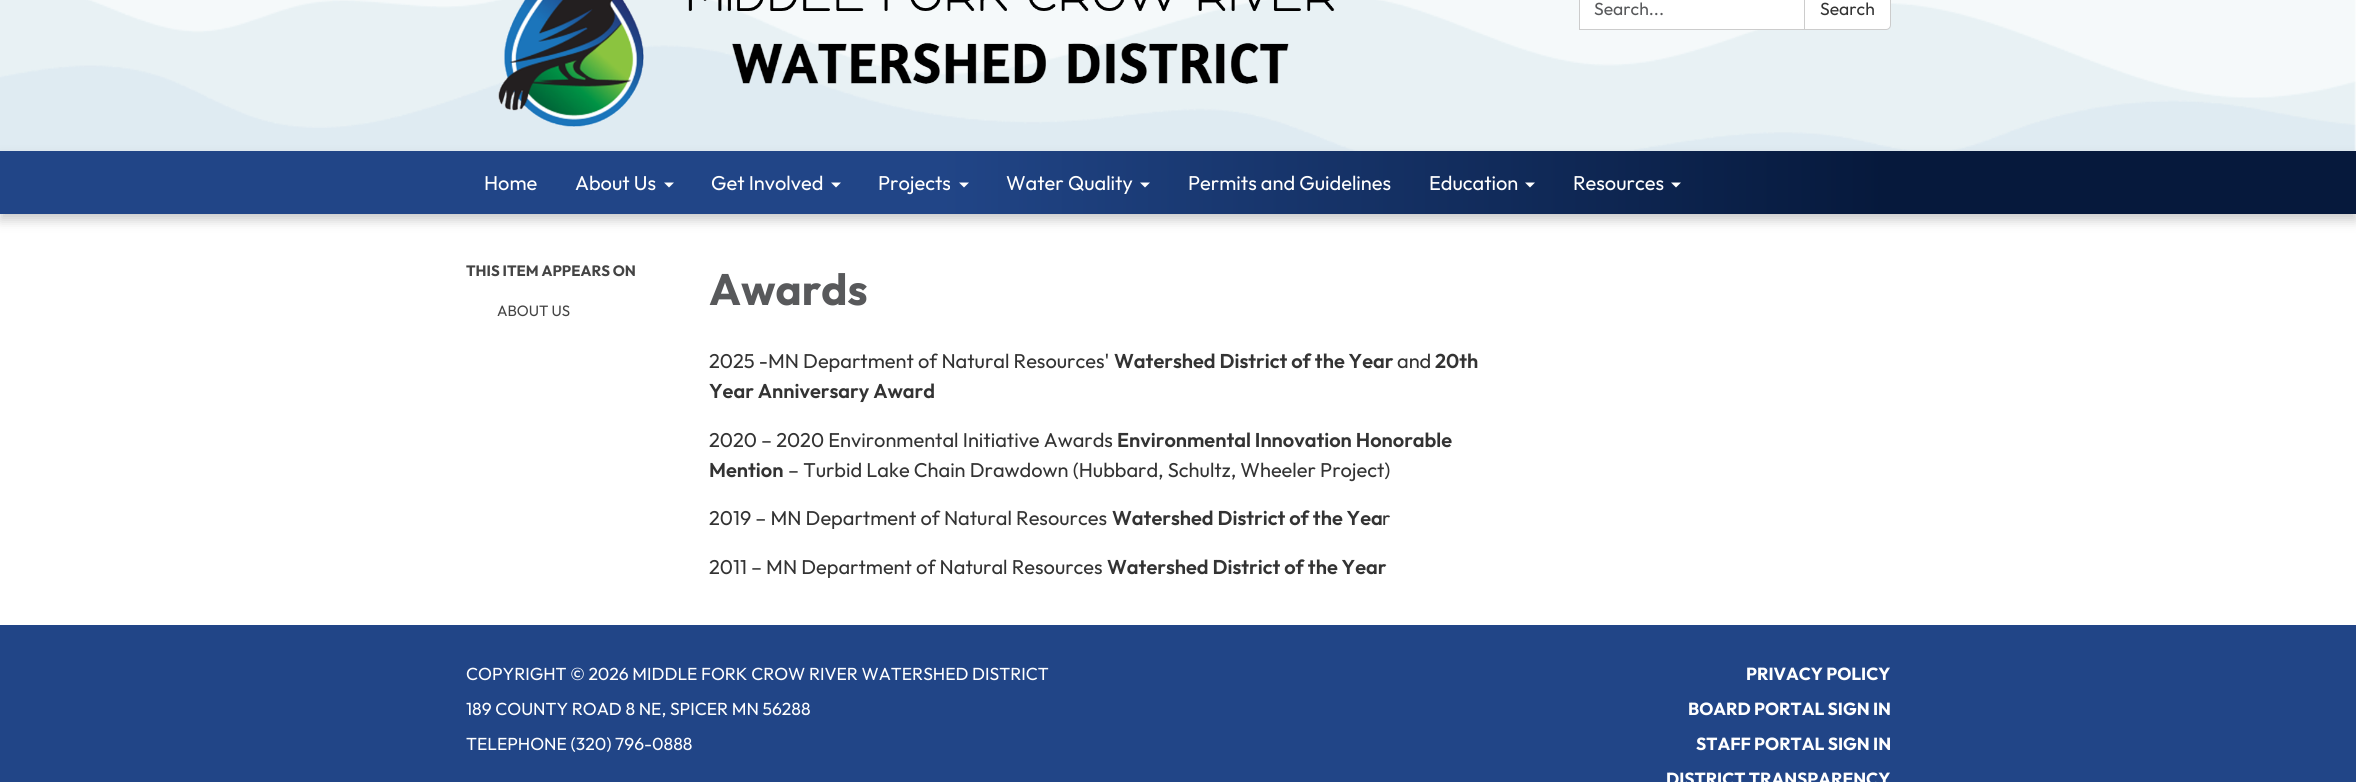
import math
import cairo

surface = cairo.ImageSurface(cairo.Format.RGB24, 2356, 782)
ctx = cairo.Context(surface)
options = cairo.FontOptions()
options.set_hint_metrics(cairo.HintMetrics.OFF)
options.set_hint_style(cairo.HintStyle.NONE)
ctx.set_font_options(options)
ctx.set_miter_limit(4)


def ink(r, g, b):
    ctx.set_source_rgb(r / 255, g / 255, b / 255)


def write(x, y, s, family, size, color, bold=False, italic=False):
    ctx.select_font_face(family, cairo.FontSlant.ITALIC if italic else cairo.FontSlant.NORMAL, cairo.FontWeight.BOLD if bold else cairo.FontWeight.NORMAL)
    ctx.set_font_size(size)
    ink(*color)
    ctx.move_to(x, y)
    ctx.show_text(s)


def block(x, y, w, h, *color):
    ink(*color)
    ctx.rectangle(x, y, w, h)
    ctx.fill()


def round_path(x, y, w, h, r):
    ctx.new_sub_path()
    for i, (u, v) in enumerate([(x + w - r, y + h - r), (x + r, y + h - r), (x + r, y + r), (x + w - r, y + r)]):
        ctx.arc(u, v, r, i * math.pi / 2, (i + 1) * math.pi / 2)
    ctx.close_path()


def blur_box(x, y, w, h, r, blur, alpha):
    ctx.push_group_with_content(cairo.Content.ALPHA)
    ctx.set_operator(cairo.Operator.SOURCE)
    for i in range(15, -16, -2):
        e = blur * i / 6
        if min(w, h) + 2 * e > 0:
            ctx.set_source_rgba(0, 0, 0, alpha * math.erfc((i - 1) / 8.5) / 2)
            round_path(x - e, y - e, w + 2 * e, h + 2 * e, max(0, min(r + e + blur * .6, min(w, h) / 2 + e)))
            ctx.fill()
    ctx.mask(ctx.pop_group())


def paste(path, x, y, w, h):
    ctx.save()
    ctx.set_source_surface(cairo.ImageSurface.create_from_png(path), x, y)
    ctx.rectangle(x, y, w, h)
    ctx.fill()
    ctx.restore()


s1 = dict(family="Outfit", size=17.5, color=(88, 89, 91))
s2 = dict(family="Outfit", size=17.5, color=(51, 51, 51))
s3 = dict(family="Outfit", size=20, color=(255, 255, 255))
s4 = dict(family="Outfit", size=15, color=(68, 68, 68), bold=True)
s5 = dict(family="Outfit", size=15, color=(68, 68, 68))
s6 = dict(family="Outfit", size=44, color=(88, 89, 91), bold=True)
s7 = dict(family="Outfit", size=20, color=(51, 51, 51))
s8 = dict(family="Outfit SemiBold", size=20, color=(51, 51, 51))
s9 = dict(family="Outfit", size=17.5, color=(255, 255, 255))
s10 = dict(family="Outfit", size=17.5, color=(255, 255, 255), bold=True)

ink(33, 69, 135)
ctx.paint()
block(0, 0, 2356, 151, 255, 255, 255)
paste("pic1.png", 0, 0, 2356, 151)
paste("pic2.png", 498, 0, 837, 128)
ctx.rectangle(1579.5, -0.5, 225, 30)
ctx.fill_preserve()
ink(204, 204, 204)
ctx.set_line_width(1)
ctx.stroke()
write(1594, 15, "Search...", **s1)
ink(255, 255, 255)
ctx.new_path()
ctx.move_to(1804.5, -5.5)
ctx.line_to(1886, -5.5)
ctx.curve_to(1888.5, -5.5, 1890.5, -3.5, 1890.5, -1)
ctx.line_to(1890.5, 25)
ctx.curve_to(1890.5, 27.5, 1888.5, 29.5, 1886, 29.5)
ctx.line_to(1804.5, 29.5)
ctx.close_path()
ctx.fill_preserve()
ink(204, 204, 204)
ctx.stroke()
write(1820, 15, "Search", **s2)
block(0, 214, 2356, 411, 255, 255, 255)
ink(0, 0, 0)
blur_box(0, 158, 2356, 62, 0, 6, 0.21)
gradient = cairo.LinearGradient(0, 183, 2356, 182)
gradient.add_color_stop_rgba(0.4, 0.129, 0.271, 0.529, 1)
gradient.add_color_stop_rgba(0.8, 0.024, 0.098, 0.235, 1)
ctx.set_source(gradient)
ctx.rectangle(0, 151, 2356, 63)
ctx.fill()
write(484, 190, "Home", **s3)
write(575, 190, "About Us", **s3)
ctx.new_path()
ctx.move_to(664, 182.5)
ctx.line_to(674, 182.5)
ctx.line_to(669, 187.5)
ctx.close_path()
ctx.fill()
write(711, 190, "Get Involved", **s3)
ctx.new_path()
ctx.move_to(831, 182.5)
ctx.line_to(841, 182.5)
ctx.line_to(836, 187.5)
ctx.close_path()
ctx.fill()
write(878, 190, "Projects", **s3)
ctx.new_path()
ctx.move_to(959, 182.5)
ctx.line_to(969, 182.5)
ctx.line_to(964, 187.5)
ctx.close_path()
ctx.fill()
write(1006, 190, "Water Quality", **s3)
ctx.new_path()
ctx.move_to(1140, 182.5)
ctx.line_to(1150, 182.5)
ctx.line_to(1145, 187.5)
ctx.close_path()
ctx.fill()
write(1188, 190, "Permits and Guidelines", **s3)
write(1429, 190, "Education", **s3)
ctx.new_path()
ctx.move_to(1525, 182.5)
ctx.line_to(1535, 182.5)
ctx.line_to(1530, 187.5)
ctx.close_path()
ctx.fill()
write(1573, 190, "Resources", **s3)
ctx.new_path()
ctx.move_to(1671, 182.5)
ctx.line_to(1681, 182.5)
ctx.line_to(1676, 187.5)
ctx.close_path()
ctx.fill()
write(466, 276, "THIS ITEM APPEARS ON", **s4)
write(497, 316, "ABOUT US", **s5)
write(709, 305, "Awards", **s6)
write(709, 368, "2025 -MN Department of Natural Resources'", **s7)
write(1114, 368, "Watershed District of the Year", **s8)
write(1397, 368, "and", **s7)
write(1435, 368, "20th", **s8)
write(709, 398, "Year Anniversary Award", **s8)
write(709, 447, "2020 – 2020 Environmental Initiative Awards", **s7)
write(1117, 447, "Environmental Innovation Honorable", **s8)
write(709, 477, "Mention", **s8)
write(788, 477, "– Turbid Lake Chain Drawdown (Hubbard, Schultz, Wheeler Project)", **s7)
write(709, 525, "2019 – MN Department of Natural Resources", **s7)
write(1112, 525, "Watershed District of the Yea", **s8)
write(1382, 525, "r", **s7)
write(709, 574, "2011 – MN Department of Natural Resources", **s7)
write(1107, 574, "Watershed District of the Year", **s8)
write(466, 680, "COPYRIGHT © 2026 MIDDLE FORK CROW RIVER WATERSHED DISTRICT", **s9)
write(466, 715, "189 COUNTY ROAD 8 NE, SPICER MN 56288", **s9)
write(466, 750, "TELEPHONE (320) 796-0888", **s9)
write(1746, 680, "PRIVACY POLICY", **s10)
write(1688, 715, "BOARD PORTAL SIGN IN", **s10)
write(1696, 750, "STAFF PORTAL SIGN IN", **s10)
write(1666, 785, "DISTRICT TRANSPARENCY", **s10)
surface.write_to_png("screenshot.png")
